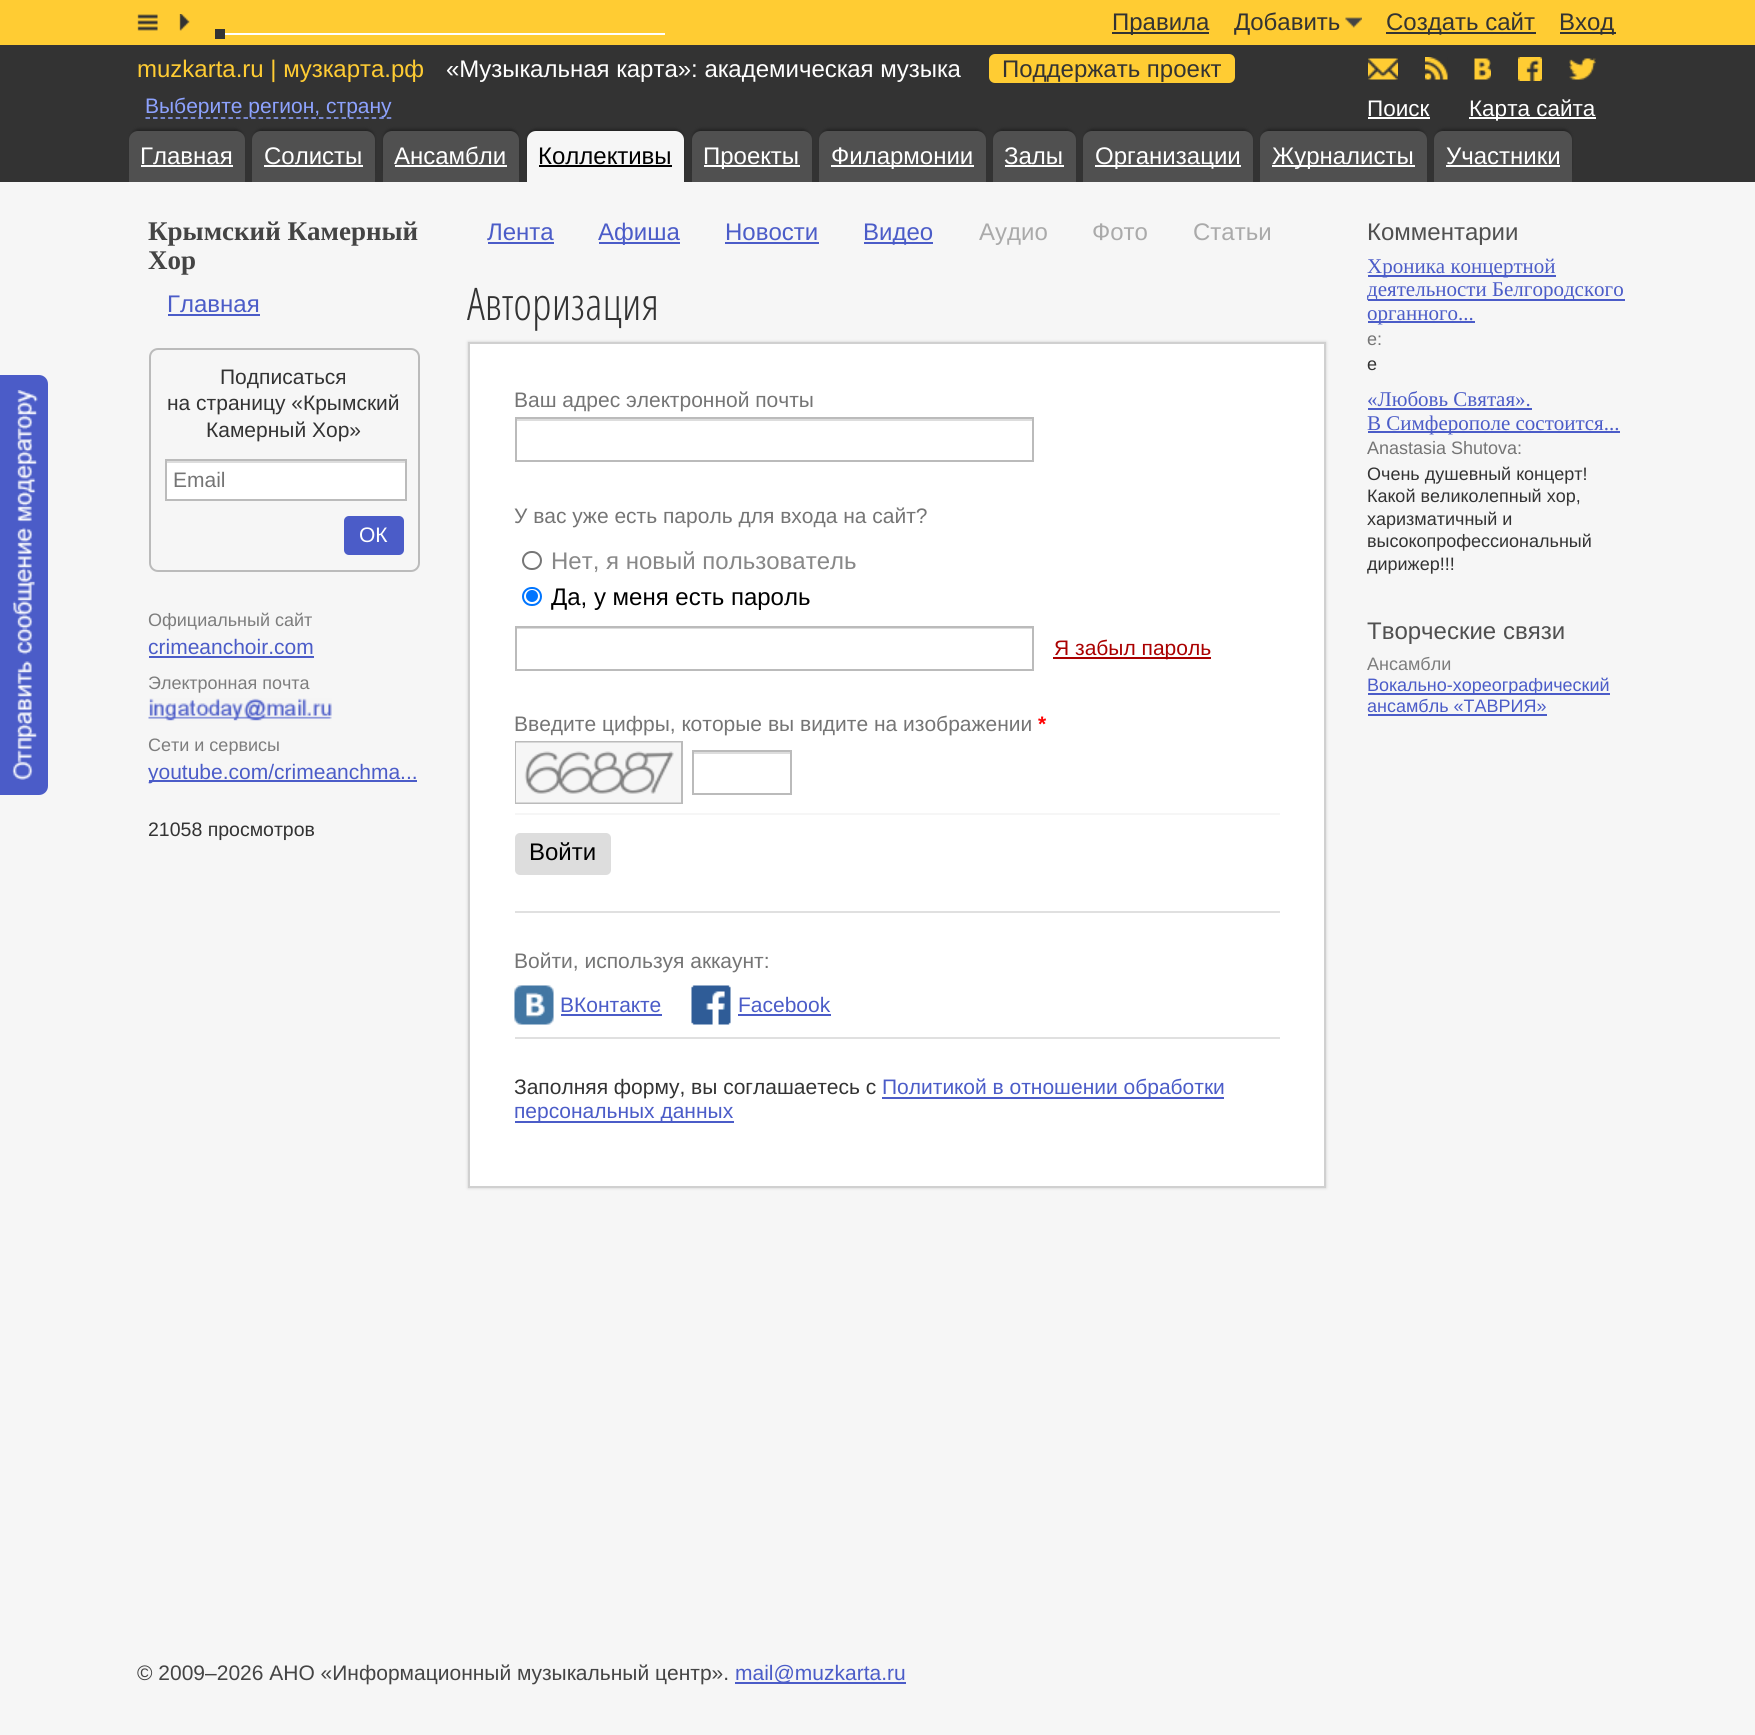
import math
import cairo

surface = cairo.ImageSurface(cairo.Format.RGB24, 1755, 1735)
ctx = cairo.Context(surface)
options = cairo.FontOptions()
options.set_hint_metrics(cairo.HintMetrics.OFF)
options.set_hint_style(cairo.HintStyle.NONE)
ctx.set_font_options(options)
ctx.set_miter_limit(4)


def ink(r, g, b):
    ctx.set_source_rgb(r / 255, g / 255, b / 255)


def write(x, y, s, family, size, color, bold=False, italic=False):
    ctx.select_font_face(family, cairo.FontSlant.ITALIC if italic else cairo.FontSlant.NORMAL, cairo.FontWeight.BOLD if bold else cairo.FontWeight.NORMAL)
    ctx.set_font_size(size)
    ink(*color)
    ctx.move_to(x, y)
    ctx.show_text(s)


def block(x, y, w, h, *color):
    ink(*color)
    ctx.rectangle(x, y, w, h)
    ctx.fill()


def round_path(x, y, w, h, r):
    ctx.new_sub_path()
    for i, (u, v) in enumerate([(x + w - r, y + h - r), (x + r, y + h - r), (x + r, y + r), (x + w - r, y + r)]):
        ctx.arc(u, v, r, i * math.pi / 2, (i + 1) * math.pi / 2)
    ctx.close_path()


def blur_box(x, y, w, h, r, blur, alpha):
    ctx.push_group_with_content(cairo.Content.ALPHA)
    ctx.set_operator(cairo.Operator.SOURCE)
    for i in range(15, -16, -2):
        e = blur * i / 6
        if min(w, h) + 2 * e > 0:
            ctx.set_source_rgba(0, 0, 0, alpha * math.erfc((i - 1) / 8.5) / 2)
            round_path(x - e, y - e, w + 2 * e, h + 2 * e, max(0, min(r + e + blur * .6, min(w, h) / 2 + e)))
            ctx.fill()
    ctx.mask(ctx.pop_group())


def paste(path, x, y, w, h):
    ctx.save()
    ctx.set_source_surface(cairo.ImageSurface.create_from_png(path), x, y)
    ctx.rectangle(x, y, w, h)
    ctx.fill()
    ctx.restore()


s1 = dict(family="Liberation Sans", size=24, color=(51, 51, 51))
s2 = dict(family="Liberation Sans", size=24, color=(255, 204, 51))
s3 = dict(family="Liberation Sans", size=24, color=(255, 255, 255))
s4 = dict(family="Liberation Sans", size=21, color=(141, 162, 254))
s5 = dict(family="Liberation Sans", size=22.5, color=(255, 255, 255))
s6 = dict(family="Liberation Sans", size=24, color=(0, 0, 0))
s7 = dict(family="Liberation Serif", size=27, color=(68, 68, 68), bold=True)
s8 = dict(family="Liberation Sans", size=24, color=(75, 92, 200))
s9 = dict(family="Liberation Sans", size=21, color=(51, 51, 51))
s10 = dict(family="Liberation Sans", size=21, color=(117, 117, 117))
s11 = dict(family="Liberation Sans", size=21, color=(255, 255, 255))
s12 = dict(family="Liberation Sans", size=18, color=(125, 125, 125))
s13 = dict(family="Liberation Sans", size=21, color=(75, 92, 200))
s14 = dict(family="Liberation Sans", size=19.5, color=(51, 51, 51))
s15 = dict(family="Liberation Sans", size=24, color=(170, 170, 170))
s16 = dict(family="Open Sans Condensed Light", size=45, color=(51, 51, 51))
s17 = dict(family="Liberation Sans", size=24, color=(136, 136, 136))
s18 = dict(family="Liberation Sans", size=21, color=(170, 0, 0))
s19 = dict(family="Liberation Sans", size=21, color=(255, 0, 0), bold=True)
s20 = dict(family="Liberation Sans", size=24, color=(80, 80, 80))
s21 = dict(family="Liberation Serif", size=21, color=(75, 92, 200))
s22 = dict(family="Liberation Sans", size=18, color=(117, 117, 117))
s23 = dict(family="Liberation Sans", size=18, color=(51, 51, 51))
s24 = dict(family="Liberation Sans", size=18, color=(75, 92, 200))
s25 = dict(family="Liberation Sans", size=21, color=(68, 68, 68))

ink(246, 246, 246)
ctx.paint()
ink(75, 92, 200)
ctx.new_path()
ctx.move_to(0, 375)
ctx.line_to(39, 375)
ctx.curve_to(44, 375, 48, 379, 48, 384)
ctx.line_to(48, 786)
ctx.curve_to(48, 791, 44, 795, 39, 795)
ctx.line_to(0, 795)
ctx.close_path()
ctx.fill()
paste("pic1.png", 12, 390, 26, 390)
block(0, 0, 1755, 45, 255, 204, 51)
paste("pic2.png", 137, 14, 21, 17)
paste("pic3.png", 179, 14, 11, 17)
block(1112, 32, 97, 2, 51, 51, 51)
write(1112, 30, "Правила", **s1)
write(1234, 30, "Добавить", **s1)
paste("pic4.png", 1345, 17, 17, 11)
block(1386, 32, 150, 2, 51, 51, 51)
write(1386, 30, "Создать сайт", **s1)
block(1560, 32, 56, 2, 51, 51, 51)
write(1559, 30, "Вход", **s1)
block(215, 29, 10, 10, 51, 51, 51)
block(225, 33, 440, 2, 255, 255, 255)
block(0, 45, 1755, 137, 51, 51, 51)
write(137, 77, "muzkarta.ru | музкарта.рф", **s2)
write(446, 77, "«Музыкальная карта»: академическая музыка", **s3)
ink(255, 204, 51)
round_path(990, 55, 244, 27, 5)
ctx.fill_preserve()
ctx.stroke()
write(1002, 77, "Поддержать проект", **s1)
paste("pic5.png", 1368, 58, 30, 22)
paste("pic6.png", 1425, 57, 23, 23)
paste("pic7.png", 1474, 58, 17, 22)
paste("pic8.png", 1518, 57, 24, 24)
paste("pic9.png", 1569, 58, 27, 22)
ctx.new_path()
ctx.move_to(145.5, 118)
ctx.line_to(391.5, 118)
ink(141, 162, 254)
ctx.set_line_width(1.5)
ctx.set_dash([4.5, 3.04])
ctx.stroke()
write(145, 113, "Выберите регион, страну", **s4)
write(1367, 116, "Поиск", **s5)
block(1368, 117, 62, 2, 255, 255, 255)
block(1469, 117, 127, 2, 255, 255, 255)
write(1469, 116, "Карта сайта", **s5)
ink(34, 34, 34)
blur_box(131, 129, 112, 48, 8, 1.5, 1)
ink(80, 80, 80)
ctx.new_path()
ctx.move_to(138, 131)
ctx.line_to(236, 131)
ctx.curve_to(241, 131, 245, 135, 245, 140)
ctx.line_to(245, 182)
ctx.line_to(129, 182)
ctx.line_to(129, 140)
ctx.curve_to(129, 135, 133, 131, 138, 131)
ctx.close_path()
ctx.fill()
write(140, 164, "Главная", **s3)
block(141, 165, 92, 2, 255, 255, 255)
ink(34, 34, 34)
blur_box(254, 129, 120, 48, 8, 1.5, 1)
ink(80, 80, 80)
ctx.new_path()
ctx.move_to(261, 131)
ctx.line_to(366, 131)
ctx.curve_to(371, 131, 375, 135, 375, 140)
ctx.line_to(375, 182)
ctx.line_to(252, 182)
ctx.line_to(252, 140)
ctx.curve_to(252, 135, 256, 131, 261, 131)
ctx.close_path()
ctx.fill()
write(264, 164, "Солисты", **s3)
block(264, 165, 99, 2, 255, 255, 255)
ink(34, 34, 34)
blur_box(384, 129, 134, 48, 8, 1.5, 1)
ink(80, 80, 80)
ctx.new_path()
ctx.move_to(392, 131)
ctx.line_to(510, 131)
ctx.curve_to(515, 131, 519, 135, 519, 140)
ctx.line_to(519, 182)
ctx.line_to(383, 182)
ctx.line_to(383, 140)
ctx.curve_to(383, 135, 387, 131, 392, 131)
ctx.close_path()
ctx.fill()
write(394, 164, "Ансамбли", **s3)
block(395, 165, 112, 2, 255, 255, 255)
ink(34, 34, 34)
blur_box(528, 129, 155, 48, 8, 1.5, 1)
ink(246, 246, 246)
ctx.new_path()
ctx.move_to(536, 131)
ctx.line_to(675, 131)
ctx.curve_to(680, 131, 684, 135, 684, 140)
ctx.line_to(684, 182)
ctx.line_to(527, 182)
ctx.line_to(527, 140)
ctx.curve_to(527, 135, 531, 131, 536, 131)
ctx.close_path()
ctx.fill()
write(538, 164, "Коллективы", **s6)
block(539, 165, 133, 2, 0, 0, 0)
ink(34, 34, 34)
blur_box(693, 129, 117, 48, 8, 1.5, 1)
ink(80, 80, 80)
ctx.new_path()
ctx.move_to(701, 131)
ctx.line_to(803, 131)
ctx.curve_to(808, 131, 812, 135, 812, 140)
ctx.line_to(812, 182)
ctx.line_to(692, 182)
ctx.line_to(692, 140)
ctx.curve_to(692, 135, 696, 131, 701, 131)
ctx.close_path()
ctx.fill()
block(704, 165, 96, 2, 255, 255, 255)
write(703, 164, "Проекты", **s3)
ink(34, 34, 34)
blur_box(821, 129, 163, 48, 8, 1.5, 1)
ink(80, 80, 80)
ctx.new_path()
ctx.move_to(828, 131)
ctx.line_to(977, 131)
ctx.curve_to(982, 131, 986, 135, 986, 140)
ctx.line_to(986, 182)
ctx.line_to(819, 182)
ctx.line_to(819, 140)
ctx.curve_to(819, 135, 823, 131, 828, 131)
ctx.close_path()
ctx.fill()
block(831, 165, 143, 2, 255, 255, 255)
write(831, 164, "Филармонии", **s3)
ink(34, 34, 34)
blur_box(995, 129, 79, 48, 8, 1.5, 1)
ink(80, 80, 80)
ctx.new_path()
ctx.move_to(1002, 131)
ctx.line_to(1067, 131)
ctx.curve_to(1072, 131, 1076, 135, 1076, 140)
ctx.line_to(1076, 182)
ctx.line_to(993, 182)
ctx.line_to(993, 140)
ctx.curve_to(993, 135, 997, 131, 1002, 131)
ctx.close_path()
ctx.fill()
write(1004, 164, "Залы", **s3)
block(1005, 165, 59, 2, 255, 255, 255)
ink(34, 34, 34)
blur_box(1085, 129, 166, 48, 8, 1.5, 1)
ink(80, 80, 80)
ctx.new_path()
ctx.move_to(1092, 131)
ctx.line_to(1244, 131)
ctx.curve_to(1249, 131, 1253, 135, 1253, 140)
ctx.line_to(1253, 182)
ctx.line_to(1083, 182)
ctx.line_to(1083, 140)
ctx.curve_to(1083, 135, 1087, 131, 1092, 131)
ctx.close_path()
ctx.fill()
block(1095, 165, 146, 2, 255, 255, 255)
write(1095, 164, "Организации", **s3)
ink(34, 34, 34)
blur_box(1262, 129, 163, 48, 8, 1.5, 1)
ink(80, 80, 80)
ctx.new_path()
ctx.move_to(1269, 131)
ctx.line_to(1418, 131)
ctx.curve_to(1423, 131, 1427, 135, 1427, 140)
ctx.line_to(1427, 182)
ctx.line_to(1260, 182)
ctx.line_to(1260, 140)
ctx.curve_to(1260, 135, 1264, 131, 1269, 131)
ctx.close_path()
ctx.fill()
block(1272, 165, 143, 2, 255, 255, 255)
write(1272, 164, "Журналисты", **s3)
ink(34, 34, 34)
blur_box(1436, 129, 135, 48, 8, 1.5, 1)
ink(80, 80, 80)
ctx.new_path()
ctx.move_to(1443, 131)
ctx.line_to(1563, 131)
ctx.curve_to(1568, 131, 1572, 135, 1572, 140)
ctx.line_to(1572, 182)
ctx.line_to(1434, 182)
ctx.line_to(1434, 140)
ctx.curve_to(1434, 135, 1438, 131, 1443, 131)
ctx.close_path()
ctx.fill()
write(1446, 164, "Участники", **s3)
block(1446, 165, 114, 2, 255, 255, 255)
write(148, 240, "Крымский Камерный", **s7)
write(148, 269, "Хор", **s7)
write(167, 312, "Главная", **s8)
block(168, 314, 92, 2, 75, 92, 200)
round_path(150, 349, 269, 222, 8)
ink(187, 187, 187)
ctx.set_line_width(2)
ctx.set_dash([])
ctx.stroke()
write(220, 384, "Подписаться", **s9)
write(167, 410, "на страницу «Крымский", **s9)
write(206, 437, "Камерный Хор»", **s9)
block(167, 463, 238, 36, 255, 255, 255)
block(167, 461, 238, 2, 221, 221, 221)
ctx.rectangle(166, 460, 240, 40)
ink(187, 187, 187)
ctx.stroke()
write(173, 487, "Email", **s10)
ink(75, 92, 200)
round_path(344, 516, 60, 39, 5)
ctx.fill()
write(359, 542, "ОК", **s11)
write(148, 626, "Официальный сайт", **s12)
write(148, 654, "crimeanchoir.com", **s13)
block(149, 656, 165, 2, 75, 92, 200)
write(148, 689, "Электронная почта", **s12)
paste("pic10.png", 148, 698, 184, 23)
write(148, 751, "Сети и сервисы", **s12)
block(149, 780, 268, 2, 75, 92, 200)
write(148, 779, "youtube.com/crimeanchma...", **s13)
write(148, 836, "21058 просмотров", **s14)
write(487, 240, "Лента", **s8)
block(488, 242, 66, 2, 75, 92, 200)
block(599, 242, 81, 2, 75, 92, 200)
write(598, 240, "Афиша", **s8)
write(725, 240, "Новости", **s8)
block(725, 242, 94, 2, 75, 92, 200)
block(864, 242, 69, 2, 75, 92, 200)
write(863, 240, "Видео", **s8)
write(979, 240, "Аудио", **s15)
write(1092, 240, "Фото", **s15)
write(1193, 240, "Статьи", **s15)
write(467, 320, "Авторизация", **s16)
ink(208, 208, 208)
blur_box(468, 342, 858, 846, 0, 1.5, 1)
ink(255, 255, 255)
ctx.rectangle(469, 343, 856, 844)
ctx.fill_preserve()
ink(208, 208, 208)
ctx.stroke()
write(514, 407, "Ваш адрес электронной почты", **s10)
block(516, 419, 516, 2, 221, 221, 221)
ctx.rectangle(516, 418, 517, 43)
ink(187, 187, 187)
ctx.stroke()
write(514, 523, "У вас уже есть пароль для входа на сайт?", **s10)
round_path(523, 552, 18, 17, 8.5)
ink(118, 118, 118)
ctx.stroke()
write(551, 569, "Нет, я новый пользователь", **s17)
round_path(523, 588, 18, 17, 8.5)
ink(0, 117, 255)
ctx.stroke()
ctx.arc(532, 596, 6, 0, 2 * math.pi)
ctx.fill()
write(551, 605, "Да, у меня есть пароль", **s6)
block(516, 628, 516, 1, 221, 221, 221)
ctx.rectangle(516, 627, 517, 43)
ink(187, 187, 187)
ctx.stroke()
block(1053, 657, 158, 2, 170, 0, 0)
write(1054, 655, "Я забыл пароль", **s18)
write(514, 731, "Введите цифры, которые вы видите на изображении", **s10)
write(1038, 731, "*", **s19)
ctx.rectangle(516, 742, 166, 61)
ink(187, 187, 187)
ctx.stroke()
paste("pic11.png", 516, 742, 165, 61)
block(693, 752, 98, 2, 221, 221, 221)
ctx.rectangle(693, 751, 98, 43)
ink(187, 187, 187)
ctx.stroke()
block(515, 813, 765, 2, 246, 246, 246)
ink(221, 221, 221)
round_path(515, 833, 96, 42, 5)
ctx.fill()
write(529, 860, "Войти", **s6)
block(515, 911, 765, 2, 224, 224, 224)
write(514, 968, "Войти, используя аккаунт:", **s10)
paste("pic12.png", 514, 985, 40, 40)
write(560, 1012, "ВКонтакте", **s13)
block(561, 1014, 101, 2, 75, 92, 200)
paste("pic13.png", 691, 985, 40, 40)
write(738, 1012, "Facebook", **s13)
block(738, 1014, 93, 2, 75, 92, 200)
block(515, 1037, 765, 2, 224, 224, 224)
write(514, 1094, "Заполняя форму, вы соглашаетесь с", **s9)
block(882, 1097, 342, 2, 75, 92, 200)
write(882, 1094, "Политикой в отношении обработки", **s13)
block(515, 1121, 219, 2, 75, 92, 200)
write(514, 1118, "персональных данных", **s13)
write(1367, 240, "Комментарии", **s20)
block(1368, 275, 188, 2, 75, 92, 200)
write(1367, 273, "Хроника концертной", **s21)
block(1368, 299, 257, 2, 75, 92, 200)
write(1367, 296, "деятельности Белгородского", **s21)
block(1368, 321, 107, 2, 75, 92, 200)
write(1367, 320, "органного...", **s21)
write(1367, 345, "e:", **s22)
write(1367, 370, "e", **s23)
write(1367, 406, "«Любовь Святая».", **s21)
block(1368, 408, 164, 2, 75, 92, 200)
block(1368, 431, 252, 2, 75, 92, 200)
write(1367, 430, "В Симферополе состоится...", **s21)
write(1367, 454, "Anastasia Shutova:", **s22)
write(1367, 480, "Очень душевный концерт!", **s23)
write(1367, 502, "Какой великолепный хор,", **s23)
write(1367, 525, "харизматичный и", **s23)
write(1367, 547, "высокопрофессиональный", **s23)
write(1367, 570, "дирижер!!!", **s23)
write(1367, 639, "Творческие связи", **s20)
write(1367, 670, "Ансамбли", **s12)
block(1368, 693, 242, 2, 75, 92, 200)
write(1367, 691, "Вокально-хореографический", **s24)
write(1367, 712, "ансамбль «ТАВРИЯ»", **s24)
block(1368, 714, 179, 2, 75, 92, 200)
write(137, 1680, "© 2009–2026 АНО «Информационный музыкальный центр».", **s25)
block(735, 1682, 171, 2, 75, 92, 200)
write(735, 1680, "mail@muzkarta.ru", **s13)
surface.write_to_png("screenshot.png")
